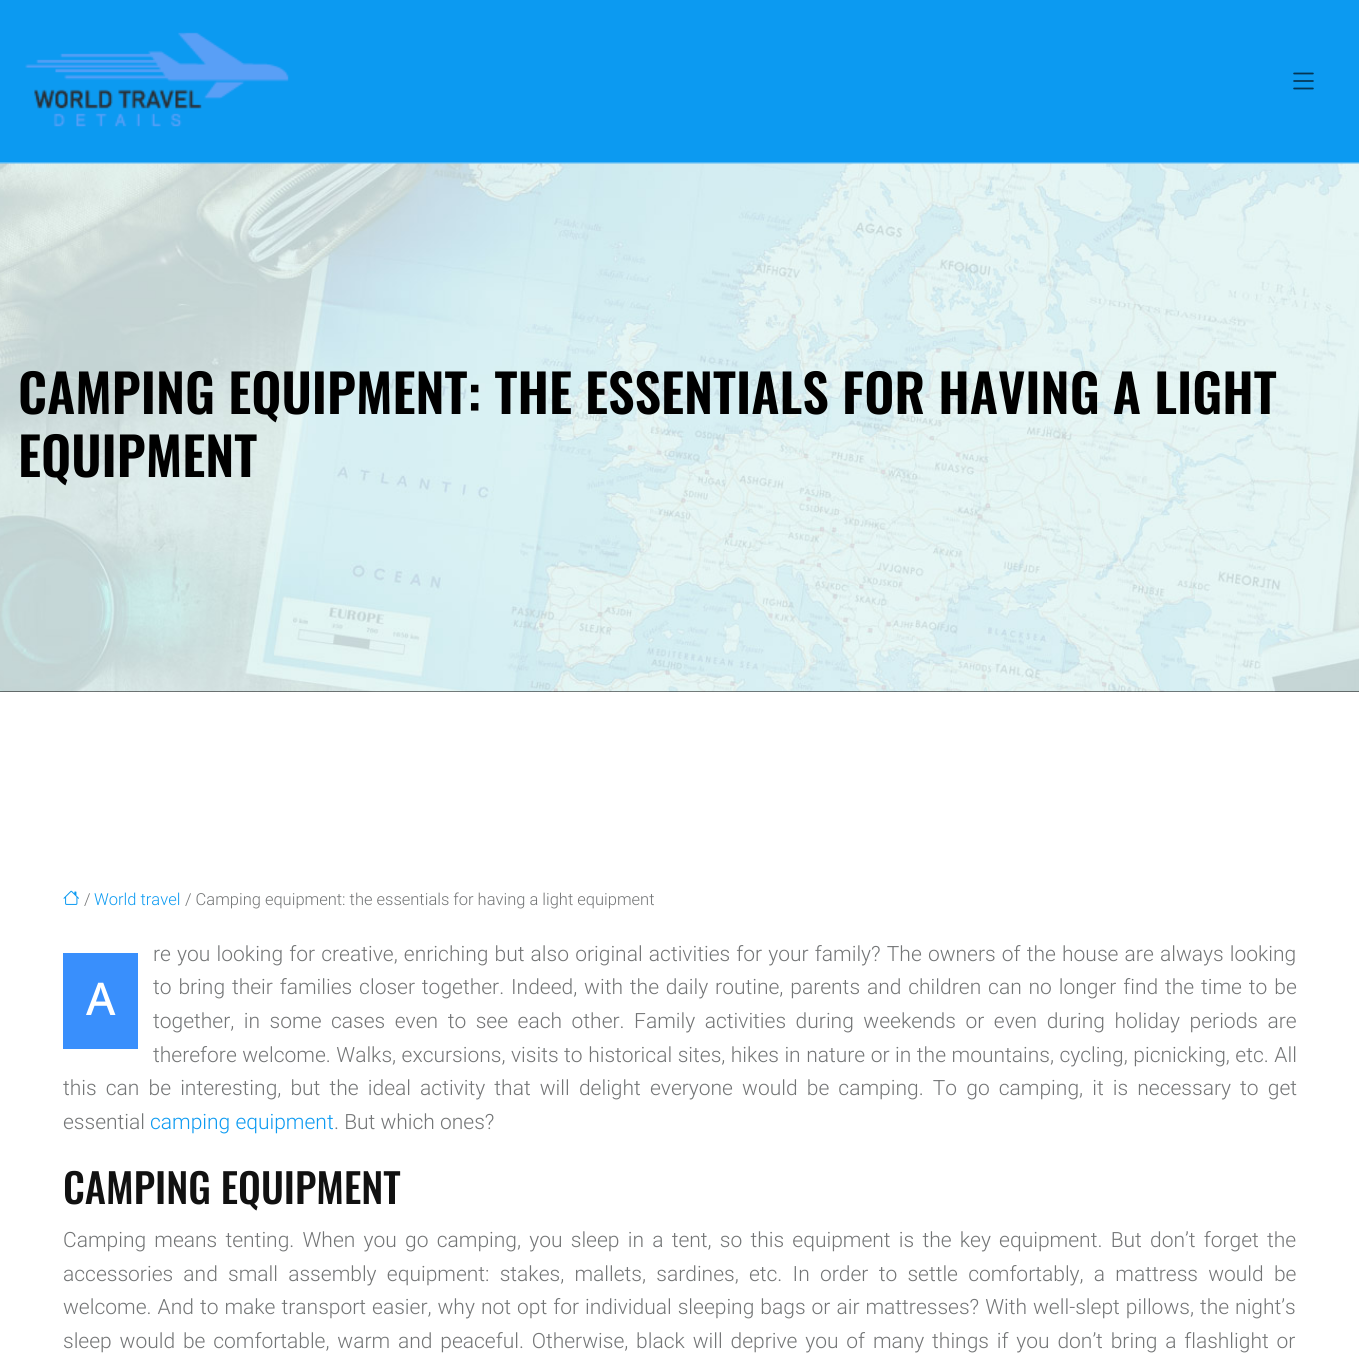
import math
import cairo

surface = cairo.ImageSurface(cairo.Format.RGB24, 1359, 1370)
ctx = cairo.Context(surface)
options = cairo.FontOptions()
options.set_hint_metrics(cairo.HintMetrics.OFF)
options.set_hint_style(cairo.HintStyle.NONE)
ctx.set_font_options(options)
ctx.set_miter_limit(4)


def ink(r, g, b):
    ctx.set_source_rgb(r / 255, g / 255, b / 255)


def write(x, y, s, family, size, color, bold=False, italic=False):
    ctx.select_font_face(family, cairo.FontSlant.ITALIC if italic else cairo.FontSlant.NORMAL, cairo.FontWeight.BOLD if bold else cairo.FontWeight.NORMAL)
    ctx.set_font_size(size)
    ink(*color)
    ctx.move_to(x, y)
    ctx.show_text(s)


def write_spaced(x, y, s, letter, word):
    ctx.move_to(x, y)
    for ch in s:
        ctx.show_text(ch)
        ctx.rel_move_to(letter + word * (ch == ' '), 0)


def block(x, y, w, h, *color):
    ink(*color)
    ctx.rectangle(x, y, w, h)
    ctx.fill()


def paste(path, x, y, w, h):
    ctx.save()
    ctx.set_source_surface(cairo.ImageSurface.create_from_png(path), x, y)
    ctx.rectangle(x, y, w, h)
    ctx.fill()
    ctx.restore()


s1 = dict(family="Oswald SemiBold", size=52.5, color=(0, 0, 0))
s2 = dict(family="Roboto Light", size=16.5, color=(115, 117, 118))
s3 = dict(family="Roboto Light", size=16.5, color=(12, 154, 241))
s4 = dict(family="Noto Sans Medium", size=45, color=(255, 255, 255))
s5 = dict(family="Roboto Light", size=21, color=(115, 117, 118))
s6 = dict(family="Roboto Light", size=21, color=(12, 154, 241))
s7 = dict(family="Oswald Medium", size=40.5, color=(17, 17, 17))

ink(255, 255, 255)
ctx.paint()
block(0, 0, 1359, 162, 12, 154, 241)
block(0, 162, 1359, 2, 85, 184, 245)
paste("pic1.png", 25, 32, 264, 95)
paste("pic2.png", 1293, 72, 21, 18)
block(0, 691, 1359, 1, 0, 0, 0)
paste("pic3.png", 0, 163, 1359, 529)
write(18, 414, "CAMPING EQUIPMENT: THE ESSENTIALS FOR HAVING A LIGHT", **s1)
write(18, 477, "EQUIPMENT", **s1)
paste("pic4.png", 63, 890, 16, 15)
write(84, 905, "/", **s2)
write(94, 905, "World travel", **s3)
write(185, 905, "/ Camping equipment: the essentials for having a light equipment", **s2)
ctx.set_font_size(21)
write_spaced(153, 961, "re you looking for creative, enriching but also original activities for your family? The owners of the house are always looking", 0, 1.05)
block(63, 953, 75, 96, 57, 143, 252)
write(86, 1015, "A", **s4)
ctx.select_font_face("Roboto Light")
ctx.set_font_size(21)
ink(115, 117, 118)
write_spaced(153, 994, "to bring their families closer together. Indeed, with the daily routine, parents and children can no longer find the time to be", 0, 1.75)
write_spaced(153, 1028, "together, in some cases even to see each other. Family activities during weekends or even during holiday periods are", 0, 4.4)
write_spaced(153, 1062, "therefore welcome. Walks, excursions, visits to historical sites, hikes in nature or in the mountains, cycling, picnicking, etc. All", 0, 0.4)
write_spaced(63, 1095, "this can be interesting, but the ideal activity that will delight everyone would be camping. To go camping, it is necessary to get", 0, 4)
write(63, 1129, "essential", **s5)
write(150, 1129, "camping equipment", **s6)
write(334, 1129, ". But which ones?", **s5)
write(63, 1204, "CAMPING EQUIPMENT", **s7)
ctx.select_font_face("Roboto Light")
ctx.set_font_size(21)
ink(115, 117, 118)
write_spaced(63, 1247, "Camping means tenting. When you go camping, you sleep in a tent, so this equipment is the key equipment. But don’t forget the", 0, 3.1)
write_spaced(63, 1281, "accessories and small assembly equipment: stakes, mallets, sardines, etc. In order to settle comfortably, a mattress would be", 0, 5.1)
write_spaced(63, 1314, "welcome. And to make transport easier, why not opt for individual sleeping bags or air mattresses? With well-slept pillows, the night’s", 0, 0.9)
write_spaced(63, 1348, "sleep would be comfortable, warm and peaceful. Otherwise, black will deprive you of many things if you don’t bring a flashlight or", 0, 2.7)
surface.write_to_png("screenshot.png")
